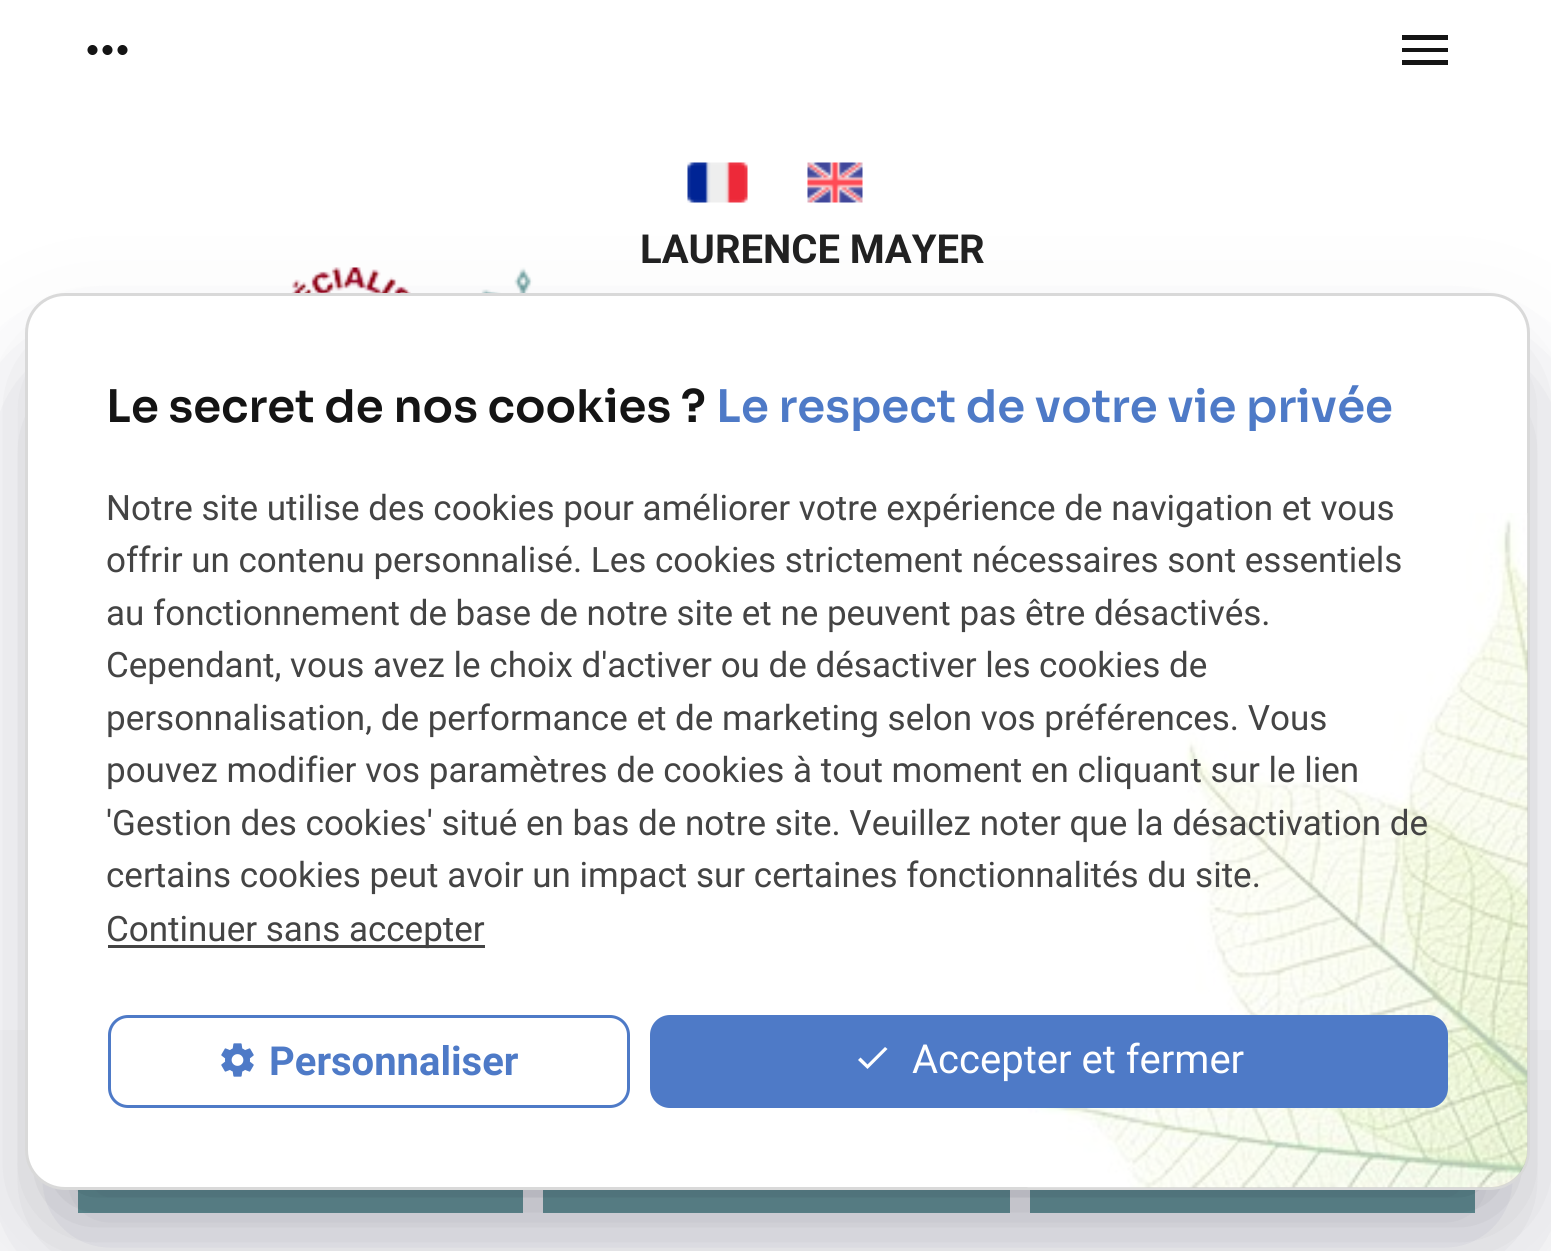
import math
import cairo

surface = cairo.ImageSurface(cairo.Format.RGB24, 1551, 1251)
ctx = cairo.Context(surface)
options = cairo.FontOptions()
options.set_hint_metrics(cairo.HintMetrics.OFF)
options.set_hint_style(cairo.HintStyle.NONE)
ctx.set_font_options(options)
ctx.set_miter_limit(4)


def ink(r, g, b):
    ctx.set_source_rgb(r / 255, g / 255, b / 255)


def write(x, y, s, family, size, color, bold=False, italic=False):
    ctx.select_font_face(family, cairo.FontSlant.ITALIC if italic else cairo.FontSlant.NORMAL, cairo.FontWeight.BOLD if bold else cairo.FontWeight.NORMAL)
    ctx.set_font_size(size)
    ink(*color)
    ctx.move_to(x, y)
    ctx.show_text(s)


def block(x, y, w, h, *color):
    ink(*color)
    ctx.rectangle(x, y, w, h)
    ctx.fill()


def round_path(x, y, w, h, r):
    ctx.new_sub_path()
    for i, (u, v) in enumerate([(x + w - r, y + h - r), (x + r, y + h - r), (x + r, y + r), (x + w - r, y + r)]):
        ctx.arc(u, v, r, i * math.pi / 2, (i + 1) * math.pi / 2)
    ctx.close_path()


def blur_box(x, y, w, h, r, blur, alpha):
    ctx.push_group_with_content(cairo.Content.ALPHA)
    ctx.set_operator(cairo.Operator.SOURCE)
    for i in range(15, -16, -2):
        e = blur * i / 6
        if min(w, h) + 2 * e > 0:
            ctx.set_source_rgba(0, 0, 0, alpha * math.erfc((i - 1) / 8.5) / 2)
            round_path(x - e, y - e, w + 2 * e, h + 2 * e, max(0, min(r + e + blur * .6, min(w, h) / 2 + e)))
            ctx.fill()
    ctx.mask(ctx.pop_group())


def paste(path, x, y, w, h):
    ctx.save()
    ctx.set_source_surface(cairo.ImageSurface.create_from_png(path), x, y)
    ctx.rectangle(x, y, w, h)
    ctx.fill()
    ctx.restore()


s1 = dict(family="Roboto", size=40, color=(33, 33, 33), bold=True)
s2 = dict(family="Sora SemiBold", size=45, color=(20, 20, 20))
s3 = dict(family="Sora SemiBold", size=45, color=(78, 122, 199))
s4 = dict(family="Roboto", size=35, color=(68, 68, 68))
s5 = dict(family="Roboto", size=40, color=(78, 122, 199), bold=True)
s6 = dict(family="Roboto", size=40, color=(255, 255, 255))

ink(250, 250, 250)
ctx.paint()
block(0, 0, 1551, 1030, 255, 255, 255)
paste("pic1.png", 87, 45, 41, 10)
ink(20, 20, 20)
ctx.new_path()
ctx.move_to(1402, 65)
ctx.line_to(1448, 65)
ctx.line_to(1448, 60)
ctx.line_to(1402, 60)
ctx.close_path()
ctx.move_to(1402, 52)
ctx.line_to(1448, 52)
ctx.line_to(1448, 48)
ctx.line_to(1402, 48)
ctx.close_path()
ctx.move_to(1402, 35)
ctx.line_to(1402, 40)
ctx.line_to(1448, 40)
ctx.line_to(1448, 35)
ctx.close_path()
ctx.fill()
paste("pic2.png", 687, 162, 61, 41)
paste("pic3.png", 807, 162, 56, 41)
write(640, 263, "LAURENCE MAYER", **s1)
paste("pic4.png", 291, 267, 120, 26)
paste("pic5.png", 481, 267, 52, 26)
block(78, 1190, 445, 23, 102, 153, 153)
block(543, 1190, 467, 23, 102, 153, 153)
block(1030, 1190, 445, 23, 102, 153, 153)
ink(0, 0, 0)
blur_box(70, 383, 1415, 807, 0, 45, 0.3)
ink(50, 50, 93)
blur_box(55, 398, 1445, 837, 10, 75, 0.25)
ink(255, 255, 255)
round_path(26.5, 294.5, 1502, 894, 38.5)
ctx.fill_preserve()
ink(217, 217, 217)
ctx.set_line_width(3)
ctx.stroke()
write(106, 422, "Le secret de nos cookies ?", **s2)
write(716, 422, "Le respect de votre vie privée", **s3)
paste("pic7.png", 1027, 513, 501, 675)
write(106, 520, "Notre site utilise des cookies pour améliorer votre expérience de navigation et vous", **s4)
write(106, 572, "offrir un contenu personnalisé. Les cookies strictement nécessaires sont essentiels", **s4)
write(106, 625, "au fonctionnement de base de notre site et ne peuvent pas être désactivés.", **s4)
write(106, 677, "Cependant, vous avez le choix d'activer ou de désactiver les cookies de", **s4)
write(106, 730, "personnalisation, de performance et de marketing selon vos préférences. Vous", **s4)
write(106, 782, "pouvez modifier vos paramètres de cookies à tout moment en cliquant sur le lien", **s4)
write(106, 835, "'Gestion des cookies' situé en bas de notre site. Veuillez noter que la désactivation de", **s4)
write(106, 887, "certains cookies peut avoir un impact sur certaines fonctionnalités du site.", **s4)
block(108, 945, 377, 3, 68, 68, 68)
write(106, 941, "Continuer sans accepter", **s4)
round_path(109.5, 1016.5, 519, 90, 18.5)
ink(78, 122, 199)
ctx.stroke()
paste("pic6.png", 221, 1043, 33, 34)
write(269, 1075, "Personnaliser", **s5)
round_path(650, 1015, 798, 93, 20)
ctx.fill()
ink(255, 255, 255)
ctx.new_path()
ctx.move_to(867.5, 1064.5)
ctx.line_to(885, 1047)
ctx.line_to(887.5, 1049)
ctx.line_to(867.5, 1069)
ctx.line_to(858, 1060)
ctx.line_to(860.5, 1057.5)
ctx.close_path()
ctx.fill()
write(912, 1073, "Accepter et fermer", **s6)
surface.write_to_png("screenshot.png")
